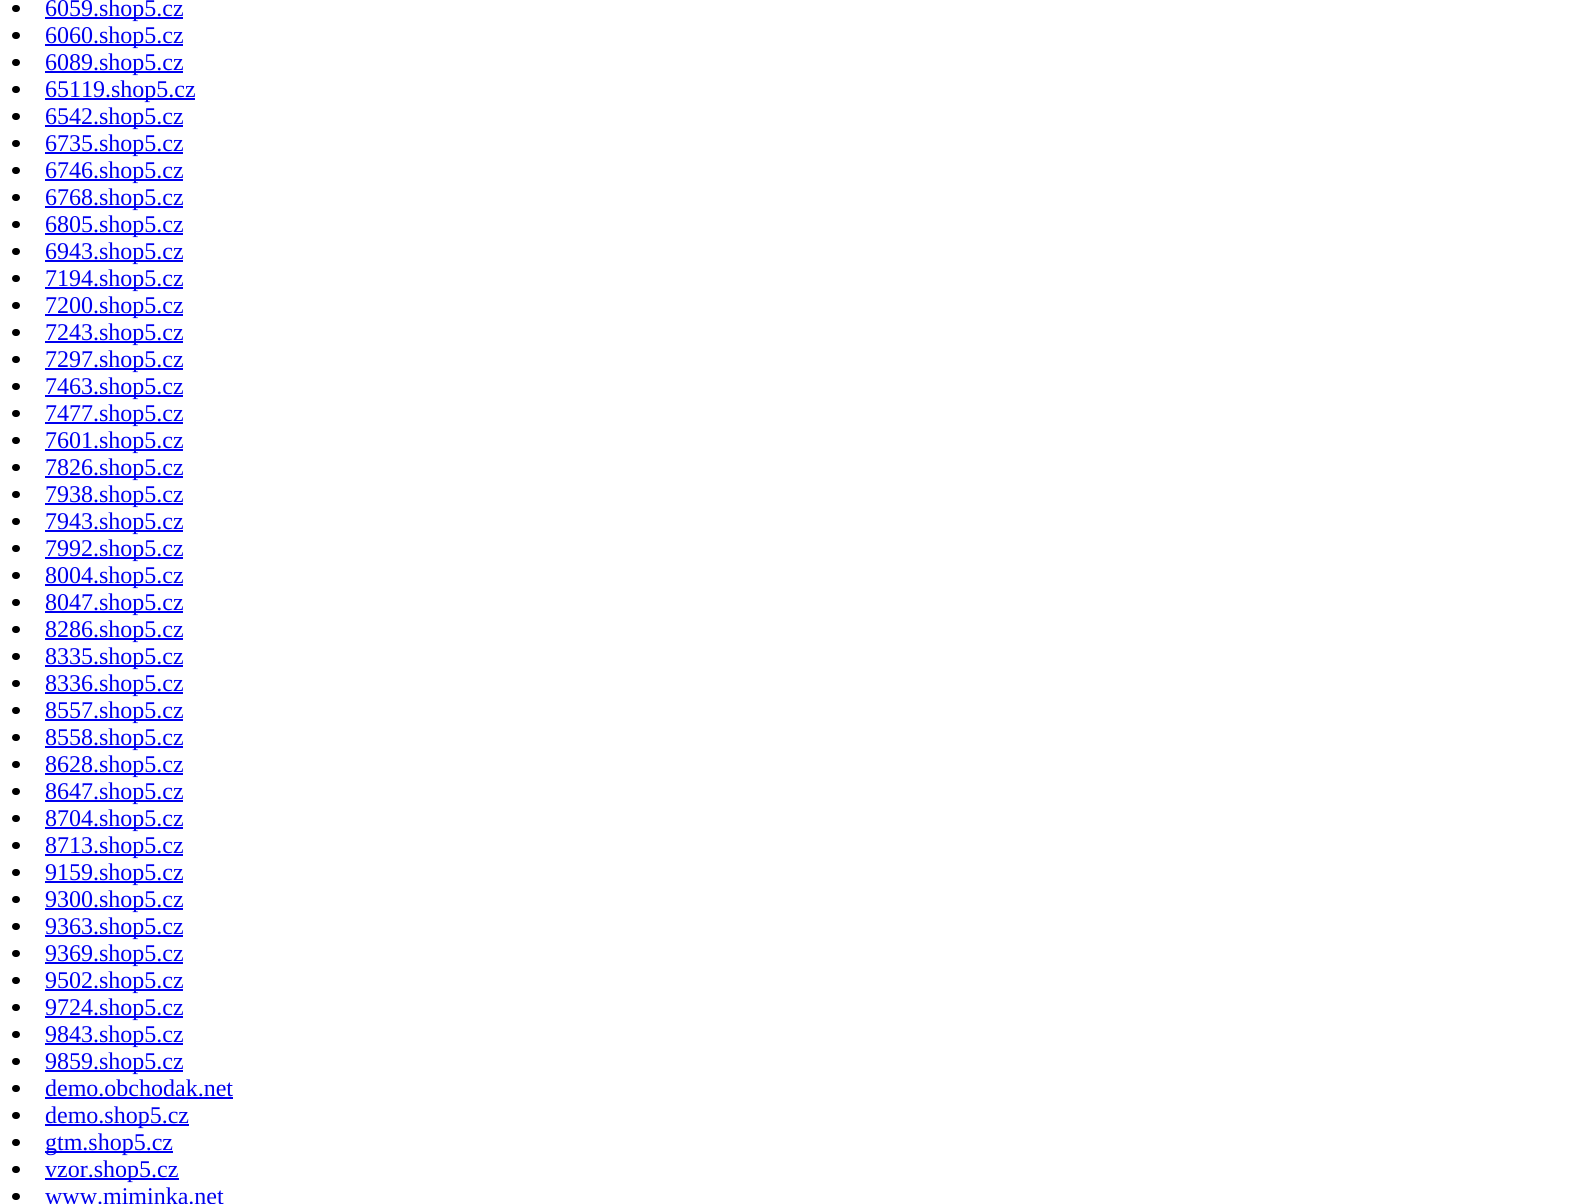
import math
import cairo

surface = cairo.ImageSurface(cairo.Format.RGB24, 1595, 1204)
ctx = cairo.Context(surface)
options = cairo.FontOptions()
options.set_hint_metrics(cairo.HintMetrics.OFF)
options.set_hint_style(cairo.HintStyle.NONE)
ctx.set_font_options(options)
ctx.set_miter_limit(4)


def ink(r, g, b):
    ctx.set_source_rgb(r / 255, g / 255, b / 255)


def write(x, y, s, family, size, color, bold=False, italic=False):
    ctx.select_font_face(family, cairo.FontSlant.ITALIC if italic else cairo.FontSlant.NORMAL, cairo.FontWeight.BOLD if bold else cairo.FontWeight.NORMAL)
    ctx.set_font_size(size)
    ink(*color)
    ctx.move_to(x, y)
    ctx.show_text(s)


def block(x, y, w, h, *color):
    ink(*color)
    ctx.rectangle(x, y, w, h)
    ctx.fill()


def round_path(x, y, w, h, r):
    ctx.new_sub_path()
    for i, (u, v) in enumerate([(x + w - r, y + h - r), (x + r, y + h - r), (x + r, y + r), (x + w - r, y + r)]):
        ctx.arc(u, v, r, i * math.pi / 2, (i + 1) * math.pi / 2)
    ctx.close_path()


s1 = dict(family="Liberation Serif", size=24, color=(0, 0, 238))

ink(255, 255, 255)
ctx.paint()
ink(0, 0, 0)
round_path(12, 5, 8, 7, 3.5)
ctx.fill()
block(45, 17, 138, 2, 0, 0, 238)
write(45, 16, "6059.shop5.cz", **s1)
ink(0, 0, 0)
round_path(12, 32, 8, 7, 3.5)
ctx.fill()
block(45, 44, 138, 2, 0, 0, 238)
write(45, 43, "6060.shop5.cz", **s1)
ink(0, 0, 0)
round_path(12, 59, 8, 7, 3.5)
ctx.fill()
block(45, 71, 138, 2, 0, 0, 238)
write(45, 70, "6089.shop5.cz", **s1)
ink(0, 0, 0)
round_path(12, 86, 8, 7, 3.5)
ctx.fill()
block(45, 98, 150, 2, 0, 0, 238)
write(45, 97, "65119.shop5.cz", **s1)
ink(0, 0, 0)
round_path(12, 113, 8, 7, 3.5)
ctx.fill()
block(45, 125, 138, 2, 0, 0, 238)
write(45, 124, "6542.shop5.cz", **s1)
ink(0, 0, 0)
round_path(12, 140, 8, 7, 3.5)
ctx.fill()
block(45, 152, 138, 2, 0, 0, 238)
write(45, 151, "6735.shop5.cz", **s1)
ink(0, 0, 0)
round_path(12, 167, 8, 7, 3.5)
ctx.fill()
block(45, 179, 138, 2, 0, 0, 238)
write(45, 178, "6746.shop5.cz", **s1)
ink(0, 0, 0)
round_path(12, 194, 8, 7, 3.5)
ctx.fill()
block(45, 206, 138, 2, 0, 0, 238)
write(45, 205, "6768.shop5.cz", **s1)
ink(0, 0, 0)
round_path(12, 221, 8, 7, 3.5)
ctx.fill()
block(45, 233, 138, 2, 0, 0, 238)
write(45, 232, "6805.shop5.cz", **s1)
ink(0, 0, 0)
round_path(12, 248, 8, 7, 3.5)
ctx.fill()
block(45, 260, 138, 2, 0, 0, 238)
write(45, 259, "6943.shop5.cz", **s1)
ink(0, 0, 0)
round_path(12, 275, 8, 7, 3.5)
ctx.fill()
block(45, 287, 138, 2, 0, 0, 238)
write(45, 286, "7194.shop5.cz", **s1)
ink(0, 0, 0)
round_path(12, 302, 8, 7, 3.5)
ctx.fill()
block(45, 314, 138, 2, 0, 0, 238)
write(45, 313, "7200.shop5.cz", **s1)
ink(0, 0, 0)
round_path(12, 329, 8, 7, 3.5)
ctx.fill()
block(45, 341, 138, 2, 0, 0, 238)
write(45, 340, "7243.shop5.cz", **s1)
ink(0, 0, 0)
round_path(12, 356, 8, 7, 3.5)
ctx.fill()
block(45, 368, 138, 2, 0, 0, 238)
write(45, 367, "7297.shop5.cz", **s1)
ink(0, 0, 0)
round_path(12, 383, 8, 7, 3.5)
ctx.fill()
block(45, 395, 138, 2, 0, 0, 238)
write(45, 394, "7463.shop5.cz", **s1)
ink(0, 0, 0)
round_path(12, 410, 8, 7, 3.5)
ctx.fill()
block(45, 422, 138, 2, 0, 0, 238)
write(45, 421, "7477.shop5.cz", **s1)
ink(0, 0, 0)
round_path(12, 437, 8, 7, 3.5)
ctx.fill()
block(45, 449, 138, 2, 0, 0, 238)
write(45, 448, "7601.shop5.cz", **s1)
ink(0, 0, 0)
round_path(12, 464, 8, 7, 3.5)
ctx.fill()
block(45, 476, 138, 2, 0, 0, 238)
write(45, 475, "7826.shop5.cz", **s1)
ink(0, 0, 0)
round_path(12, 491, 8, 7, 3.5)
ctx.fill()
block(45, 503, 138, 2, 0, 0, 238)
write(45, 502, "7938.shop5.cz", **s1)
ink(0, 0, 0)
round_path(12, 518, 8, 7, 3.5)
ctx.fill()
block(45, 530, 138, 2, 0, 0, 238)
write(45, 529, "7943.shop5.cz", **s1)
ink(0, 0, 0)
round_path(12, 545, 8, 7, 3.5)
ctx.fill()
block(45, 557, 138, 2, 0, 0, 238)
write(45, 556, "7992.shop5.cz", **s1)
ink(0, 0, 0)
round_path(12, 572, 8, 7, 3.5)
ctx.fill()
block(45, 584, 138, 2, 0, 0, 238)
write(45, 583, "8004.shop5.cz", **s1)
ink(0, 0, 0)
round_path(12, 599, 8, 7, 3.5)
ctx.fill()
block(45, 611, 138, 2, 0, 0, 238)
write(45, 610, "8047.shop5.cz", **s1)
ink(0, 0, 0)
round_path(12, 626, 8, 7, 3.5)
ctx.fill()
block(45, 638, 138, 2, 0, 0, 238)
write(45, 637, "8286.shop5.cz", **s1)
ink(0, 0, 0)
round_path(12, 653, 8, 7, 3.5)
ctx.fill()
block(45, 665, 138, 2, 0, 0, 238)
write(45, 664, "8335.shop5.cz", **s1)
ink(0, 0, 0)
round_path(12, 680, 8, 7, 3.5)
ctx.fill()
block(45, 692, 138, 2, 0, 0, 238)
write(45, 691, "8336.shop5.cz", **s1)
ink(0, 0, 0)
round_path(12, 707, 8, 7, 3.5)
ctx.fill()
block(45, 719, 138, 2, 0, 0, 238)
write(45, 718, "8557.shop5.cz", **s1)
ink(0, 0, 0)
round_path(12, 734, 8, 7, 3.5)
ctx.fill()
block(45, 746, 138, 2, 0, 0, 238)
write(45, 745, "8558.shop5.cz", **s1)
ink(0, 0, 0)
round_path(12, 761, 8, 7, 3.5)
ctx.fill()
block(45, 773, 138, 2, 0, 0, 238)
write(45, 772, "8628.shop5.cz", **s1)
ink(0, 0, 0)
round_path(12, 788, 8, 7, 3.5)
ctx.fill()
block(45, 800, 138, 2, 0, 0, 238)
write(45, 799, "8647.shop5.cz", **s1)
ink(0, 0, 0)
round_path(12, 815, 8, 7, 3.5)
ctx.fill()
block(45, 827, 138, 2, 0, 0, 238)
write(45, 826, "8704.shop5.cz", **s1)
ink(0, 0, 0)
round_path(12, 842, 8, 7, 3.5)
ctx.fill()
block(45, 854, 138, 2, 0, 0, 238)
write(45, 853, "8713.shop5.cz", **s1)
ink(0, 0, 0)
round_path(12, 869, 8, 7, 3.5)
ctx.fill()
block(45, 881, 138, 2, 0, 0, 238)
write(45, 880, "9159.shop5.cz", **s1)
ink(0, 0, 0)
round_path(12, 896, 8, 7, 3.5)
ctx.fill()
block(45, 908, 138, 2, 0, 0, 238)
write(45, 907, "9300.shop5.cz", **s1)
ink(0, 0, 0)
round_path(12, 923, 8, 7, 3.5)
ctx.fill()
block(45, 935, 138, 2, 0, 0, 238)
write(45, 934, "9363.shop5.cz", **s1)
ink(0, 0, 0)
round_path(12, 950, 8, 7, 3.5)
ctx.fill()
block(45, 962, 138, 2, 0, 0, 238)
write(45, 961, "9369.shop5.cz", **s1)
ink(0, 0, 0)
round_path(12, 977, 8, 7, 3.5)
ctx.fill()
block(45, 989, 138, 2, 0, 0, 238)
write(45, 988, "9502.shop5.cz", **s1)
ink(0, 0, 0)
round_path(12, 1004, 8, 7, 3.5)
ctx.fill()
block(45, 1016, 138, 2, 0, 0, 238)
write(45, 1015, "9724.shop5.cz", **s1)
ink(0, 0, 0)
round_path(12, 1031, 8, 7, 3.5)
ctx.fill()
block(45, 1043, 138, 2, 0, 0, 238)
write(45, 1042, "9843.shop5.cz", **s1)
ink(0, 0, 0)
round_path(12, 1058, 8, 7, 3.5)
ctx.fill()
block(45, 1070, 138, 2, 0, 0, 238)
write(45, 1069, "9859.shop5.cz", **s1)
ink(0, 0, 0)
round_path(12, 1085, 8, 7, 3.5)
ctx.fill()
write(45, 1096, "demo.obchodak.net", **s1)
block(45, 1097, 188, 2, 0, 0, 238)
ink(0, 0, 0)
round_path(12, 1112, 8, 7, 3.5)
ctx.fill()
block(45, 1124, 144, 2, 0, 0, 238)
write(45, 1123, "demo.shop5.cz", **s1)
ink(0, 0, 0)
round_path(12, 1139, 8, 7, 3.5)
ctx.fill()
block(45, 1151, 128, 2, 0, 0, 238)
write(45, 1150, "gtm.shop5.cz", **s1)
ink(0, 0, 0)
round_path(12, 1166, 8, 7, 3.5)
ctx.fill()
block(45, 1178, 134, 2, 0, 0, 238)
write(45, 1177, "vzor.shop5.cz", **s1)
ink(0, 0, 0)
round_path(12, 1193, 8, 7, 3.5)
ctx.fill()
write(45, 1204, "www.miminka.net", **s1)
surface.write_to_png("screenshot.png")
